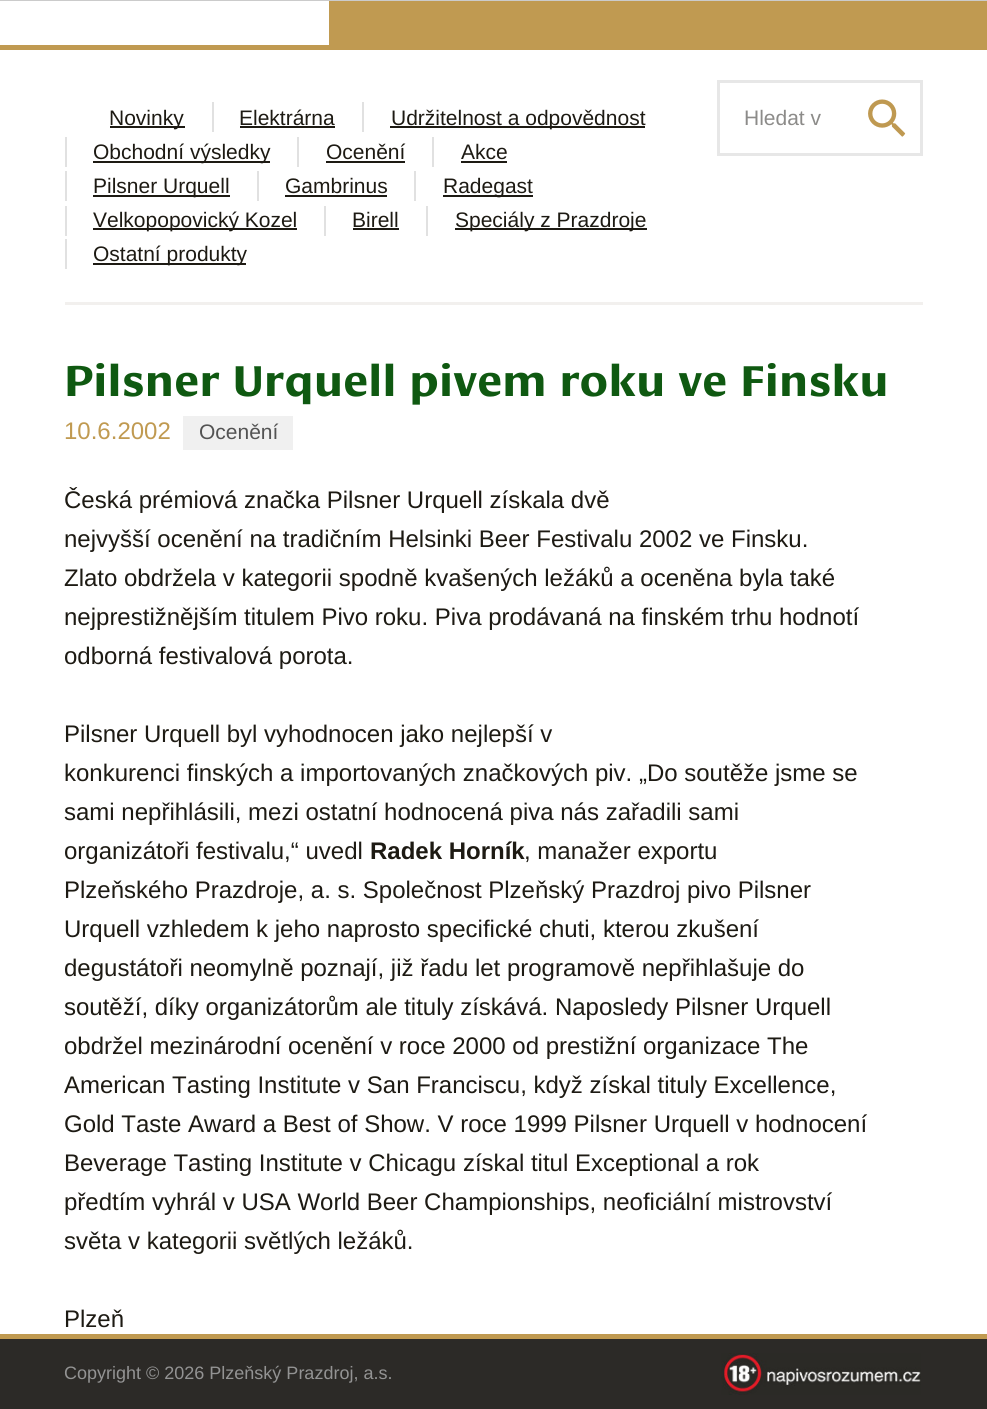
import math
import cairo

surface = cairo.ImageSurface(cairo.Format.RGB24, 987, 1409)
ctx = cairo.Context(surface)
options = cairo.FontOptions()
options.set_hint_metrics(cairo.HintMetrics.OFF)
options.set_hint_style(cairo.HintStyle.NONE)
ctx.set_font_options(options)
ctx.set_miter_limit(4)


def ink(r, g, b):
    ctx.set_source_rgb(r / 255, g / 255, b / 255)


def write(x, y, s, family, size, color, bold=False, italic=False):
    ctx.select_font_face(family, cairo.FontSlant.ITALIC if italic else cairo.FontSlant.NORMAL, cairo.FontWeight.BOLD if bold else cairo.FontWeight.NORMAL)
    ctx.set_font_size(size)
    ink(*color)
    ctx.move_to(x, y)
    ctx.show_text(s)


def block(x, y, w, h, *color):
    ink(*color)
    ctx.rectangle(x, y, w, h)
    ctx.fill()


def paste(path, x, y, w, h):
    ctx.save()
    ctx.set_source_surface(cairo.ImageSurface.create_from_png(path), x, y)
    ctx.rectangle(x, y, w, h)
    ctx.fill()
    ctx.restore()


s1 = dict(family="Liberation Sans", size=21, color=(29, 26, 19))
s2 = dict(family="Liberation Sans", size=21, color=(140, 139, 137))
s3 = dict(family="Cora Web", size=45, color=(15, 89, 17), bold=True)
s4 = dict(family="Liberation Sans", size=24, color=(192, 154, 81))
s5 = dict(family="Liberation Sans", size=21, color=(83, 83, 83))
s6 = dict(family="Liberation Sans", size=24, color=(29, 26, 19))
s7 = dict(family="Liberation Sans", size=24, color=(29, 26, 19), bold=True)
s8 = dict(family="Liberation Sans", size=18, color=(147, 147, 147))

ink(255, 255, 255)
ctx.paint()
block(0, 0, 987, 1, 203, 203, 203)
block(0, 45, 987, 5, 192, 154, 81)
block(329, 1, 658, 44, 192, 154, 81)
block(65, 302, 858, 3, 242, 240, 238)
block(110, 126, 75, 2, 29, 26, 19)
write(109, 125, "Novinky", **s1)
block(212, 102, 2, 30, 225, 225, 225)
write(239, 125, "Elektrárna", **s1)
block(240, 126, 95, 2, 29, 26, 19)
block(362, 102, 2, 30, 225, 225, 225)
block(390, 126, 255, 2, 29, 26, 19)
write(391, 125, "Udržitelnost a odpovědnost", **s1)
block(65, 137, 2, 30, 225, 225, 225)
block(93, 161, 177, 2, 29, 26, 19)
write(93, 159, "Obchodní výsledky", **s1)
block(297, 137, 2, 30, 225, 225, 225)
write(326, 159, "Ocenění", **s1)
block(326, 161, 79, 2, 29, 26, 19)
block(432, 137, 2, 30, 225, 225, 225)
write(461, 159, "Akce", **s1)
block(461, 161, 46, 2, 29, 26, 19)
block(65, 171, 2, 30, 225, 225, 225)
block(93, 195, 137, 2, 29, 26, 19)
write(93, 193, "Pilsner Urquell", **s1)
block(257, 171, 2, 30, 225, 225, 225)
write(285, 193, "Gambrinus", **s1)
block(285, 195, 102, 2, 29, 26, 19)
block(414, 171, 2, 30, 225, 225, 225)
block(443, 195, 90, 2, 29, 26, 19)
write(443, 193, "Radegast", **s1)
block(65, 206, 2, 30, 225, 225, 225)
block(93, 228, 204, 2, 29, 26, 19)
write(93, 227, "Velkopopovický Kozel", **s1)
block(324, 206, 2, 30, 225, 225, 225)
write(352, 227, "Birell", **s1)
block(353, 228, 46, 2, 29, 26, 19)
block(426, 206, 2, 30, 225, 225, 225)
block(455, 228, 192, 2, 29, 26, 19)
write(455, 227, "Speciály z Prazdroje", **s1)
block(65, 239, 2, 30, 225, 225, 225)
block(93, 263, 153, 2, 29, 26, 19)
write(93, 261, "Ostatní produkty", **s1)
ctx.rectangle(718.5, 81.5, 203, 73)
ink(231, 231, 231)
ctx.set_line_width(3)
ctx.stroke()
write(744, 125, "Hledat v", **s2)
paste("pic1.png", 868, 99, 38, 38)
write(64, 396, "Pilsner Urquell pivem roku ve Finsku", **s3)
write(64, 439, "10.6.2002", **s4)
block(183, 416, 110, 34, 240, 240, 240)
write(199, 439, "Ocenění", **s5)
write(64, 508, "Česká prémiová značka Pilsner Urquell získala dvě", **s6)
write(64, 547, "nejvyšší ocenění na tradičním Helsinki Beer Festivalu 2002 ve Finsku.", **s6)
write(64, 586, "Zlato obdržela v kategorii spodně kvašených ležáků a oceněna byla také", **s6)
write(64, 625, "nejprestižnějším titulem Pivo roku. Piva prodávaná na finském trhu hodnotí", **s6)
write(64, 664, "odborná festivalová porota.", **s6)
write(64, 742, "Pilsner Urquell byl vyhodnocen jako nejlepší v", **s6)
write(64, 781, "konkurenci finských a importovaných značkových piv. „Do soutěže jsme se", **s6)
write(64, 820, "sami nepřihlásili, mezi ostatní hodnocená piva nás zařadili sami", **s6)
write(64, 859, "organizátoři festivalu,“ uvedl", **s6)
write(370, 859, "Radek Horník", **s7)
write(524, 859, ", manažer exportu", **s6)
write(64, 898, "Plzeňského Prazdroje, a. s. Společnost Plzeňský Prazdroj pivo Pilsner", **s6)
write(64, 937, "Urquell vzhledem k jeho naprosto specifické chuti, kterou zkušení", **s6)
write(64, 976, "degustátoři neomylně poznají, již řadu let programově nepřihlašuje do", **s6)
write(64, 1015, "soutěží, díky organizátorům ale tituly získává. Naposledy Pilsner Urquell", **s6)
write(64, 1054, "obdržel mezinárodní ocenění v roce 2000 od prestižní organizace The", **s6)
write(64, 1093, "American Tasting Institute v San Franciscu, když získal tituly Excellence,", **s6)
write(64, 1132, "Gold Taste Award a Best of Show. V roce 1999 Pilsner Urquell v hodnocení", **s6)
write(64, 1171, "Beverage Tasting Institute v Chicagu získal titul Exceptional a rok", **s6)
write(64, 1210, "předtím vyhrál v USA World Beer Championships, neoficiální mistrovství", **s6)
write(64, 1249, "světa v kategorii světlých ležáků.", **s6)
write(64, 1327, "Plzeň", **s6)
block(0, 1339, 987, 70, 44, 42, 39)
block(0, 1334, 987, 5, 192, 154, 81)
write(64, 1379, "Copyright © 2026 Plzeňský Prazdroj, a.s.", **s8)
paste("pic2.png", 721, 1353, 200, 42)
surface.write_to_png("screenshot.png")
